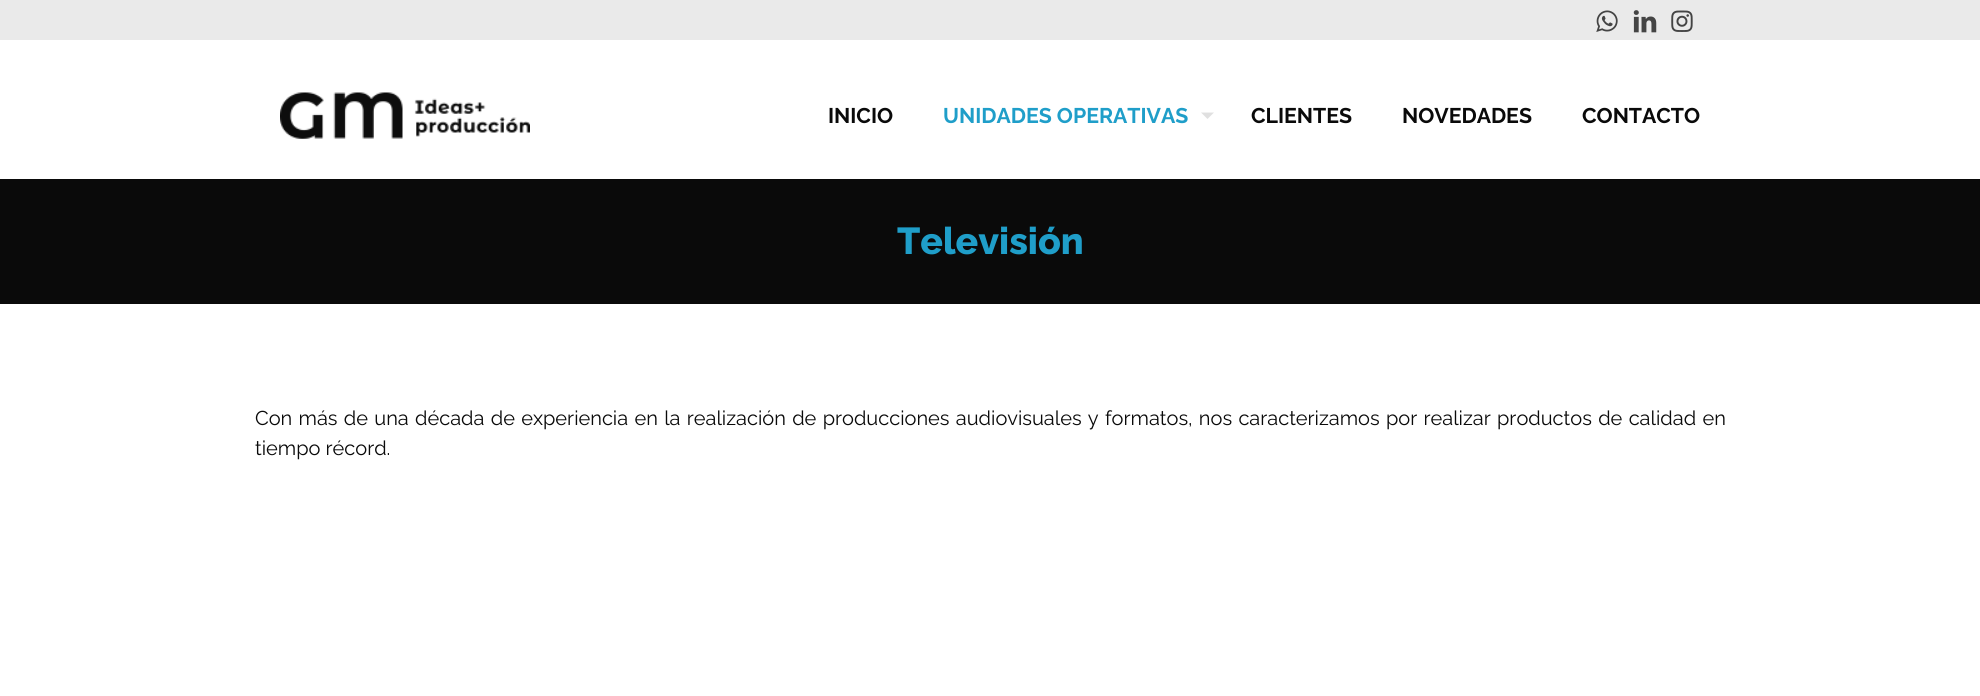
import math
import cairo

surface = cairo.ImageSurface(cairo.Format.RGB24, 1980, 696)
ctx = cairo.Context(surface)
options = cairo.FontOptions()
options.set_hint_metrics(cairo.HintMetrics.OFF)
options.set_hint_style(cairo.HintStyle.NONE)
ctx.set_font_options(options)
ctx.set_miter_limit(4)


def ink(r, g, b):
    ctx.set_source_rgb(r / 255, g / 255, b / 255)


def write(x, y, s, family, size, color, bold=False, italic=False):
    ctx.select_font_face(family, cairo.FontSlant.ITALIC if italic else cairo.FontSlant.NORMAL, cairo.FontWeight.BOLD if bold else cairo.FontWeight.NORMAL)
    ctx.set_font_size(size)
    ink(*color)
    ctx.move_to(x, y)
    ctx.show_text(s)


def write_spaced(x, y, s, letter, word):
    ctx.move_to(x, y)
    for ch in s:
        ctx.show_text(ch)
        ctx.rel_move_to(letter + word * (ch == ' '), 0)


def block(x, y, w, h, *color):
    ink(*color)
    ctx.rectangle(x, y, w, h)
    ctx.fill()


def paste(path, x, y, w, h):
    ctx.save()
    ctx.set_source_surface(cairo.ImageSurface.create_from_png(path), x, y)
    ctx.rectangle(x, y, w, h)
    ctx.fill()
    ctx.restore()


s1 = dict(family="Raleway", size=21.25, color=(10, 10, 10), bold=True)
s2 = dict(family="Raleway", size=21.25, color=(31, 158, 201), bold=True)
s3 = dict(family="Raleway ExtraBold", size=37.5, color=(31, 158, 201))
s4 = dict(family="Raleway", size=20, color=(10, 10, 10))

ink(255, 255, 255)
ctx.paint()
block(0, 0, 1980, 40, 234, 234, 234)
paste("pic1.png", 1596, 10, 22, 22)
paste("pic2.png", 1633, 10, 24, 23)
paste("pic3.png", 1671, 10, 22, 22)
paste("pic4.png", 280, 92, 250, 47)
write(828, 123, "INICIO", **s1)
write(943, 123, "UNIDADES OPERATIVAS", **s2)
ink(224, 224, 224)
ctx.new_path()
ctx.move_to(1201, 112.5)
ctx.line_to(1214, 112.5)
ctx.line_to(1207.5, 119)
ctx.close_path()
ctx.fill()
write(1251, 123, "CLIENTES", **s1)
write(1402, 123, "NOVEDADES", **s1)
write(1582, 123, "CONTACTO", **s1)
block(0, 179, 1980, 125, 10, 10, 10)
write(897, 254, "Televisión", **s3)
ctx.select_font_face("Raleway")
ctx.set_font_size(20)
ink(10, 10, 10)
write_spaced(255, 425, "Con más de una década de experiencia en la realización de producciones audiovisuales y formatos, nos caracterizamos por realizar productos de calidad en", 0, 1.2)
write(255, 455, "tiempo récord.", **s4)
surface.write_to_png("screenshot.png")
